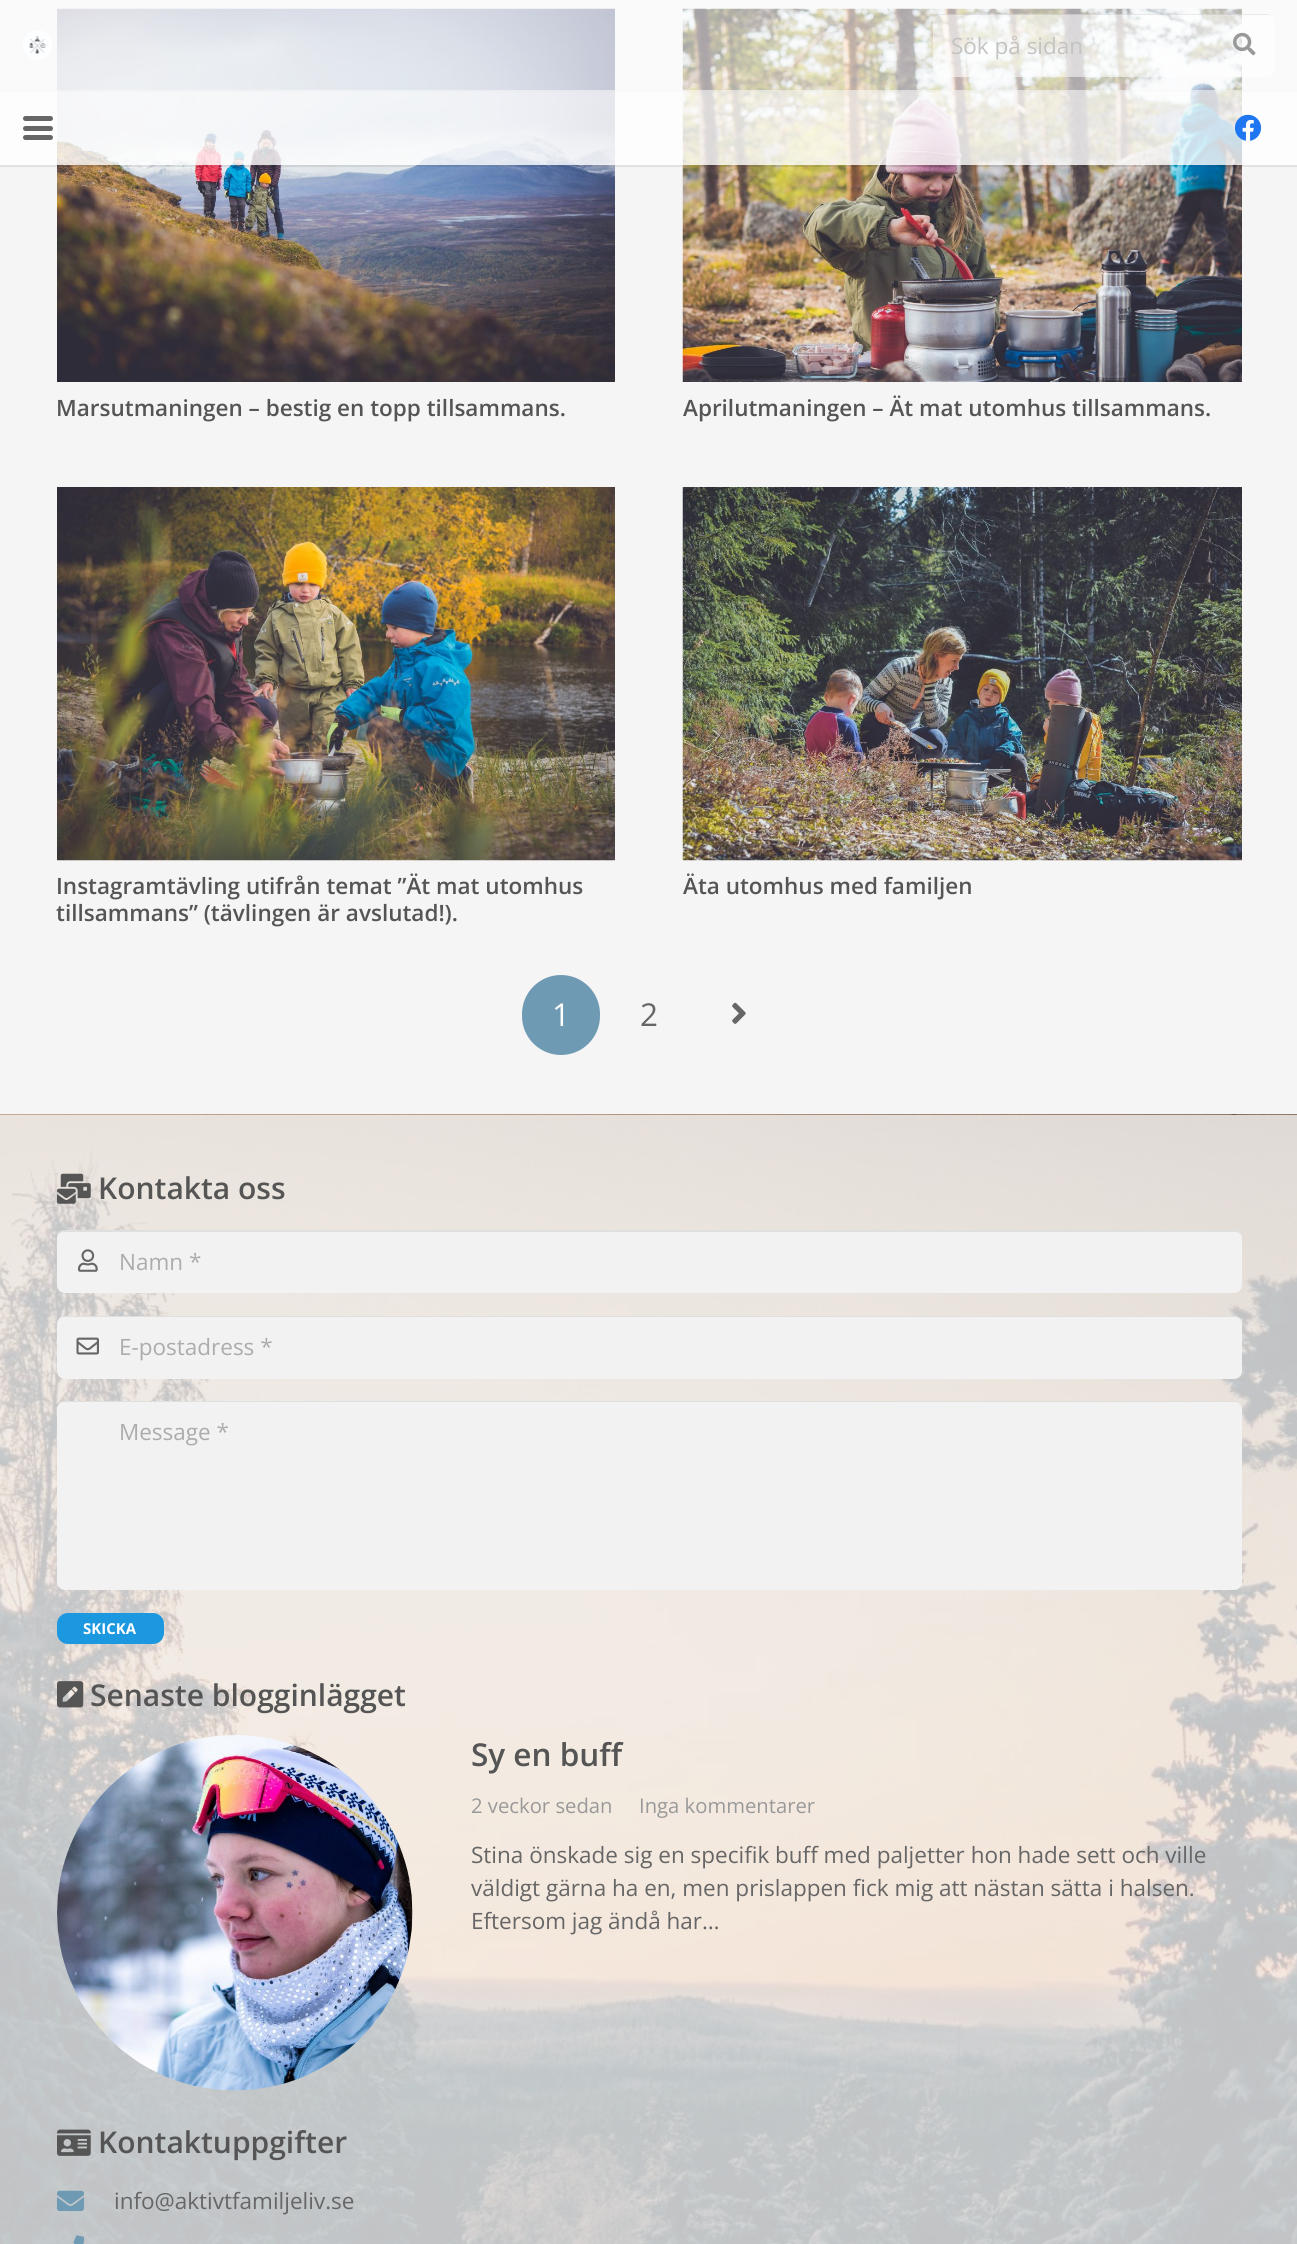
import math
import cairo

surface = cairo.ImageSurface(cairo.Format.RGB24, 1297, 2244)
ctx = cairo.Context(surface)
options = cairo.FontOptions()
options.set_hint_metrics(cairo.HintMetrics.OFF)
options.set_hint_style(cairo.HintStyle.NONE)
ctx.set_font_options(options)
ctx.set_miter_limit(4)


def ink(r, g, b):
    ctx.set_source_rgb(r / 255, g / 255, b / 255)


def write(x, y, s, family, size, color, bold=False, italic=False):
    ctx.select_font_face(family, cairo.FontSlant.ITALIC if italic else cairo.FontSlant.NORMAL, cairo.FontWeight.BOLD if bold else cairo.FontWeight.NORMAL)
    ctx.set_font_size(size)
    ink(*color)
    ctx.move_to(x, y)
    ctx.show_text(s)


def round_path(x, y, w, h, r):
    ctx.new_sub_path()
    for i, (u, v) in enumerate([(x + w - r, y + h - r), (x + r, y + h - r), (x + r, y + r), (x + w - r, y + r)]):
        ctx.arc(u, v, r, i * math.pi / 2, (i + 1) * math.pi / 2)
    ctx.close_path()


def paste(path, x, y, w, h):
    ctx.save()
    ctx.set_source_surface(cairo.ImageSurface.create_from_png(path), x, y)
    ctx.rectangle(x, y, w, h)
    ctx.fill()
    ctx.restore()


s1 = dict(family="Open Sans", size=22.5, color=(195, 195, 193))
s2 = dict(family="Open Sans SemiBold", size=22.5, color=(85, 85, 85))
s3 = dict(family="Open Sans", size=31.5, color=(255, 255, 255))
s4 = dict(family="Open Sans", size=31.5, color=(102, 102, 102))
s5 = dict(family="Open Sans SemiBold", size=30, color=(85, 85, 85))
s6 = dict(family="Open Sans", size=22.5, color=(172, 172, 172))
s7 = dict(family="Open Sans", size=15, color=(255, 255, 255), bold=True)
s8 = dict(family="Open Sans SemiBold", size=31.5, color=(85, 85, 85))
s9 = dict(family="Open Sans", size=20.25, color=(153, 153, 153))
s10 = dict(family="Open Sans", size=22.5, color=(102, 102, 102))

ink(245, 245, 245)
ctx.paint()
paste("pic4.png", 57, 8, 558, 374)
paste("pic5.png", 682, 8, 560, 374)
ctx.set_source_rgba(0, 0, 0, 0.08)
ctx.new_path()
ctx.move_to(0, 90)
ctx.line_to(0, 92)
ctx.line_to(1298, 92)
ctx.line_to(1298, 2)
ctx.line_to(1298, 90)
ctx.close_path()
ctx.fill()
ctx.set_source_rgba(1, 1, 1, 0.55)
ctx.rectangle(0, 0, 1297, 90)
ctx.fill()
paste("pic1.png", 23, 30, 29, 30)
round_path(933, 14, 342, 63, 8)
ctx.fill()
ctx.set_source_rgba(0, 0, 0, 0.08)
ctx.new_path()
ctx.move_to(940, 15)
ctx.line_to(1268, 15)
ctx.curve_to(1272, 15, 1275, 18, 1275, 22)
ctx.curve_to(1275, 18, 1271, 14, 1267, 14)
ctx.line_to(941, 14)
ctx.curve_to(937, 14, 933, 18, 933, 22)
ctx.curve_to(933, 18, 936, 15, 940, 15)
ctx.close_path()
ctx.fill()
write(951, 54, "Sök på sidan", **s1)
paste("pic2.png", 1233, 32, 23, 24)
ctx.set_source_rgba(0, 0, 0, 0.08)
ctx.new_path()
ctx.move_to(0, 165)
ctx.line_to(0, 167)
ctx.line_to(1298, 167)
ctx.line_to(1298, 92)
ctx.line_to(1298, 165)
ctx.close_path()
ctx.fill()
ctx.set_source_rgba(1, 1, 1, 0.8)
ctx.rectangle(0, 90, 1297, 75)
ctx.fill()
ink(102, 102, 102)
round_path(23, 126, 30, 5, 2.5)
ctx.fill()
round_path(23, 116, 30, 5, 2.5)
ctx.fill()
round_path(23, 135, 30, 5, 2.5)
ctx.fill()
paste("pic3.png", 1234, 114, 28, 27)
write(56, 416, "Marsutmaningen – bestig en topp tillsammans.", **s2)
write(683, 416, "Aprilutmaningen – Ät mat utomhus tillsammans.", **s2)
paste("pic6.png", 57, 487, 558, 374)
write(56, 894, "Instagramtävling utifrån temat ”Ät mat utomhus", **s2)
write(56, 921, "tillsammans” (tävlingen är avslutad!).", **s2)
paste("pic7.png", 682, 487, 560, 374)
write(683, 894, "Äta utomhus med familjen", **s2)
ink(111, 154, 179)
round_path(522, 975, 78, 80, 39)
ctx.fill()
write(552, 1026, "1", **s3)
write(640, 1026, "2", **s4)
paste("pic8.png", 732, 1002, 14, 22)
paste("pic9.png", 0, 1114, 1297, 1130)
paste("pic10.png", 57, 1173, 34, 31)
write(98, 1199, "Kontakta oss", **s5)
ink(242, 242, 242)
round_path(57, 1230, 1185, 63, 8)
ctx.fill()
paste("pic11.png", 78, 1249, 20, 23)
ctx.set_source_rgba(0, 0, 0, 0.08)
ctx.new_path()
ctx.move_to(64, 1232)
ctx.line_to(1235, 1232)
ctx.curve_to(1239, 1232, 1242, 1235, 1242, 1238)
ctx.curve_to(1242, 1234, 1238, 1230, 1234, 1230)
ctx.line_to(65, 1230)
ctx.curve_to(61, 1230, 57, 1234, 57, 1238)
ctx.curve_to(57, 1235, 60, 1232, 64, 1232)
ctx.close_path()
ctx.fill()
write(119, 1270, "Namn *", **s6)
ink(242, 242, 242)
round_path(57, 1316, 1185, 63, 8)
ctx.fill()
paste("pic12.png", 76, 1337, 23, 18)
ctx.set_source_rgba(0, 0, 0, 0.08)
ctx.new_path()
ctx.move_to(64, 1317)
ctx.line_to(1235, 1317)
ctx.curve_to(1239, 1317, 1242, 1320, 1242, 1324)
ctx.curve_to(1242, 1320, 1238, 1316, 1234, 1316)
ctx.line_to(65, 1316)
ctx.curve_to(61, 1316, 57, 1320, 57, 1324)
ctx.curve_to(57, 1320, 60, 1317, 64, 1317)
ctx.close_path()
ctx.fill()
write(119, 1355, "E-postadress *", **s6)
ink(242, 242, 242)
round_path(57, 1401, 1185, 189, 8)
ctx.fill()
ctx.set_source_rgba(0, 0, 0, 0.08)
ctx.new_path()
ctx.move_to(64, 1402)
ctx.line_to(1235, 1402)
ctx.curve_to(1239, 1402, 1242, 1406, 1242, 1409)
ctx.curve_to(1242, 1405, 1238, 1401, 1234, 1401)
ctx.line_to(65, 1401)
ctx.curve_to(61, 1401, 57, 1405, 57, 1409)
ctx.curve_to(57, 1406, 60, 1402, 64, 1402)
ctx.close_path()
ctx.fill()
write(119, 1440, "Message *", **s6)
ink(27, 152, 224)
round_path(57, 1613, 107, 31, 11)
ctx.fill()
write(83, 1634, "SKICKA", **s7)
paste("pic13.png", 57, 1681, 27, 27)
write(90, 1706, "Senaste blogginlägget", **s5)
paste("pic14.png", 57, 1735, 356, 356)
write(471, 1766, "Sy en buff", **s8)
write(471, 1813, "2 veckor sedan", **s9)
write(639, 1813, "Inga kommentarer", **s9)
write(471, 1863, "Stina önskade sig en specifik buff med paljetter hon hade sett och ville", **s10)
write(471, 1896, "väldigt gärna ha en, men prislappen fick mig att nästan sätta i halsen.", **s10)
write(471, 1929, "Eftersom jag ändå har…", **s10)
paste("pic15.png", 57, 2129, 34, 27)
write(98, 2153, "Kontaktuppgifter", **s5)
paste("pic16.png", 57, 2190, 27, 21)
write(114, 2209, "info@aktivtfamiljeliv.se", **s10)
paste("pic17.png", 73, 2235, 11, 9)
surface.write_to_png("screenshot.png")
